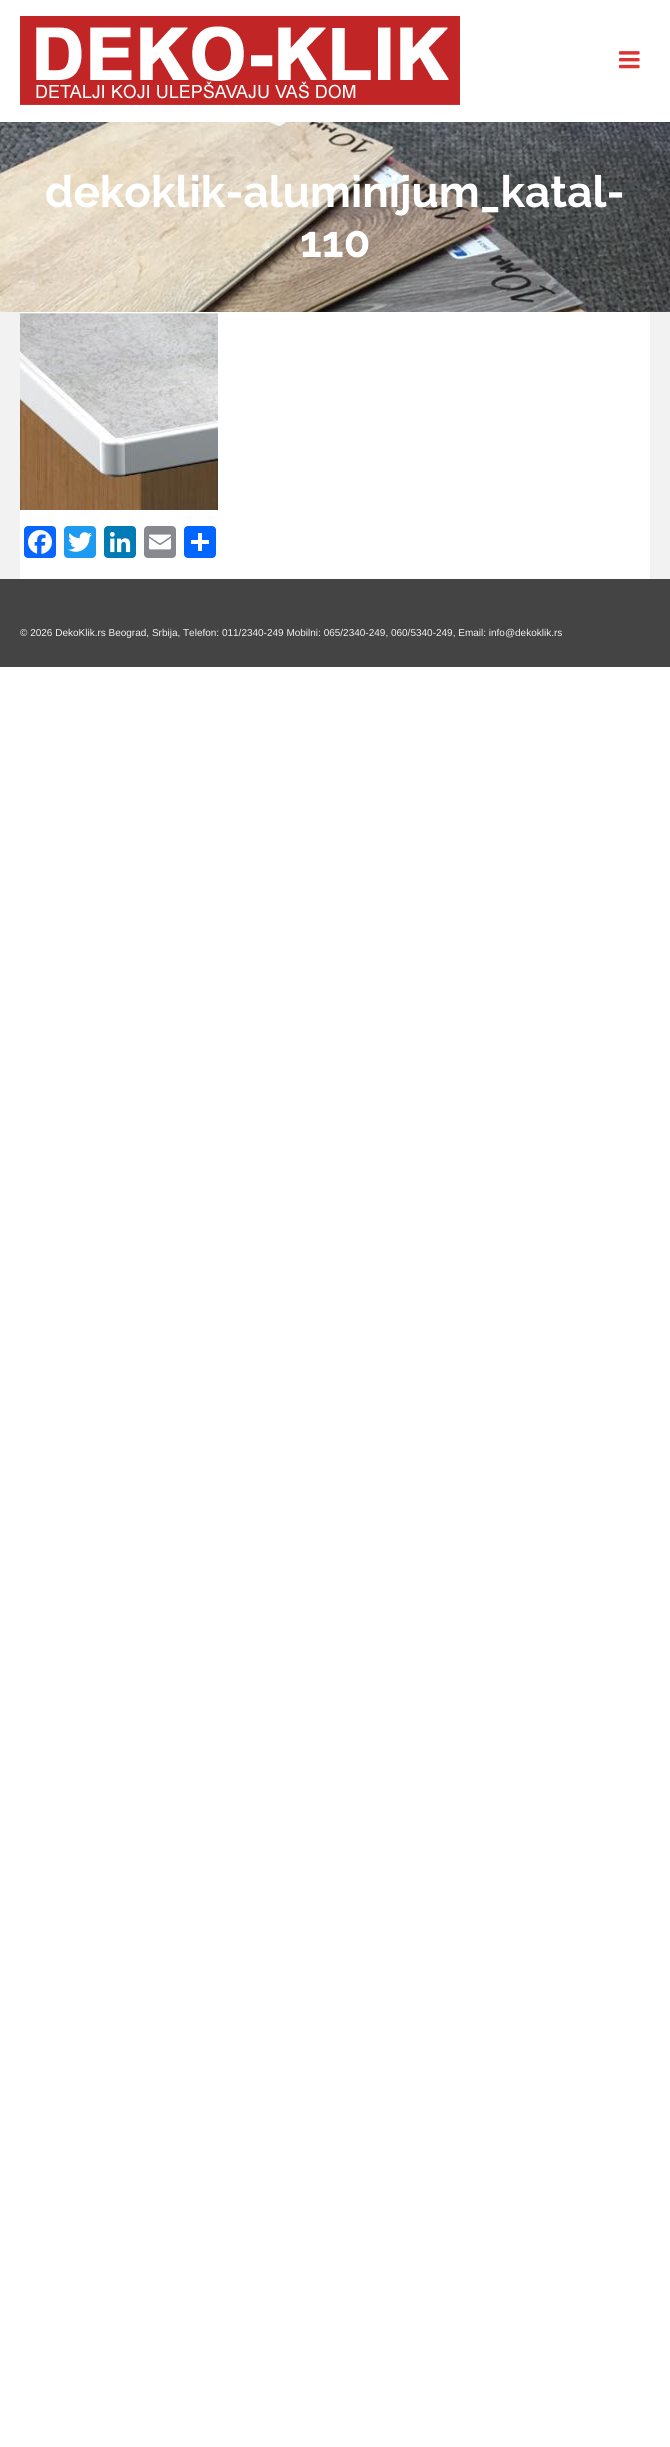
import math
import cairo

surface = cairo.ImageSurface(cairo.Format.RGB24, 670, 2447)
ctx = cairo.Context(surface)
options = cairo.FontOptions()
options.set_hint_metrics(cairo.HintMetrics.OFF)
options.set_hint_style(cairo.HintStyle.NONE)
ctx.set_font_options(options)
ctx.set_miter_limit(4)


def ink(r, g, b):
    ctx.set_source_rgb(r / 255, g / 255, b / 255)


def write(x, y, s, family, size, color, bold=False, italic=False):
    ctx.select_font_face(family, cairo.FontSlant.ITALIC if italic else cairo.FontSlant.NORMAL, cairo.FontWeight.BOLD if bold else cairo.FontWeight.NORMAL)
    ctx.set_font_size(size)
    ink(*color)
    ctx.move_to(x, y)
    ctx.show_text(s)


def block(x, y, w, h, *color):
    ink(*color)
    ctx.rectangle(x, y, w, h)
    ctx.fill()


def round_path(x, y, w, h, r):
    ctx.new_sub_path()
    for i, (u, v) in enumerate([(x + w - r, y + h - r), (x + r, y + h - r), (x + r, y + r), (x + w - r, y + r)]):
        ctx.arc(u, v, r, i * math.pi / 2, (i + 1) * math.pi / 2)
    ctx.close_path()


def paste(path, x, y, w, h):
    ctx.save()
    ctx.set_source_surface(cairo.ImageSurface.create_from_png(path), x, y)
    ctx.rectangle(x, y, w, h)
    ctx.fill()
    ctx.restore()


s1 = dict(family="Raleway", size=44, color=(255, 255, 255), bold=True)
s2 = dict(family="Liberation Sans", size=10, color=(242, 242, 242))

ink(255, 255, 255)
ctx.paint()
paste("pic1.png", 20, 16, 440, 89)
paste("pic2.png", 619, 51, 21, 18)
block(0, 312, 670, 267, 242, 242, 242)
paste("pic3.png", 0, 122, 670, 190)
write(45, 207, "dekoklik-aluminijum_katal-", **s1)
write(300, 257, "110", **s1)
block(20, 312, 630, 267, 255, 255, 255)
paste("pic4.png", 20, 312, 198, 198)
ink(8, 102, 255)
round_path(24, 526, 32, 32, 4)
ctx.fill()
paste("pic5.png", 28, 530, 24, 24)
ink(29, 155, 240)
round_path(64, 526, 32, 32, 4)
ctx.fill()
paste("pic6.png", 68, 532, 24, 20)
ink(0, 123, 181)
round_path(104, 526, 32, 32, 4)
ctx.fill()
paste("pic7.png", 109, 531, 22, 22)
ink(136, 137, 144)
round_path(144, 526, 32, 32, 4)
ctx.fill()
paste("pic8.png", 149, 534, 22, 16)
ink(1, 102, 255)
round_path(184, 526, 32, 32, 4)
ctx.fill()
block(198, 533, 4, 18, 255, 255, 255)
block(191, 540, 18, 4, 255, 255, 255)
block(0, 579, 670, 88, 68, 68, 68)
write(20, 636, "© 2026 DekoKlik.rs Beograd, Srbija, Telefon: 011/2340-249 Mobilni: 065/2340-249, 060/5340-249, Email: info@dekoklik.rs", **s2)
surface.write_to_png("screenshot.png")
